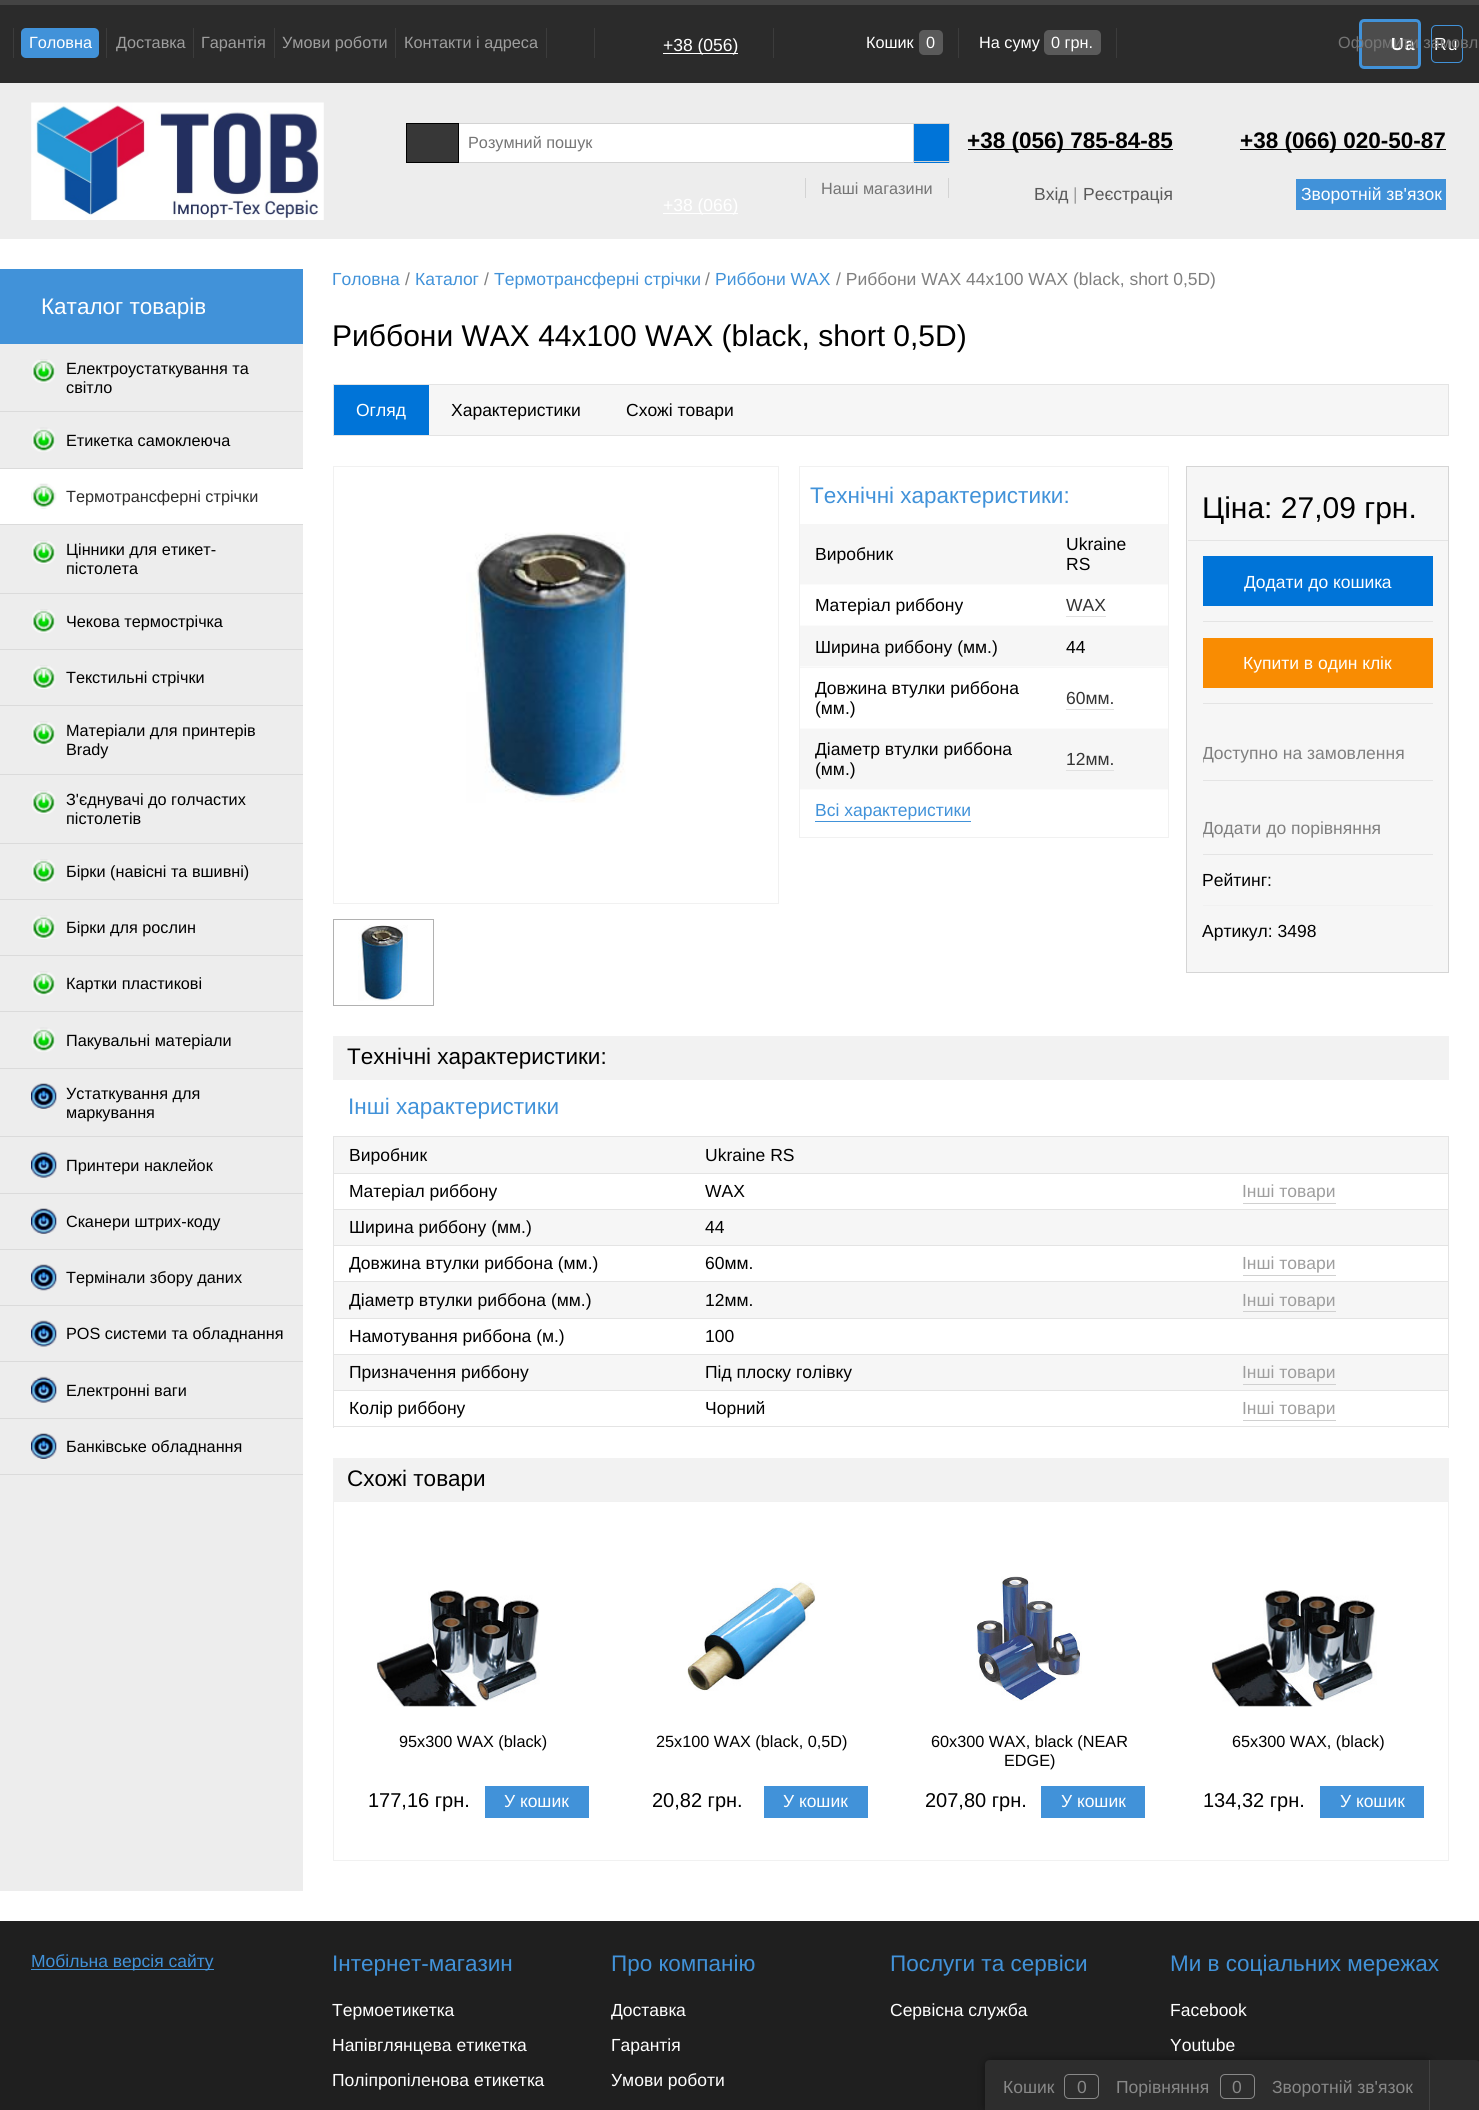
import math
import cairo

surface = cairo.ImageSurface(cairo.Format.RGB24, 1479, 2110)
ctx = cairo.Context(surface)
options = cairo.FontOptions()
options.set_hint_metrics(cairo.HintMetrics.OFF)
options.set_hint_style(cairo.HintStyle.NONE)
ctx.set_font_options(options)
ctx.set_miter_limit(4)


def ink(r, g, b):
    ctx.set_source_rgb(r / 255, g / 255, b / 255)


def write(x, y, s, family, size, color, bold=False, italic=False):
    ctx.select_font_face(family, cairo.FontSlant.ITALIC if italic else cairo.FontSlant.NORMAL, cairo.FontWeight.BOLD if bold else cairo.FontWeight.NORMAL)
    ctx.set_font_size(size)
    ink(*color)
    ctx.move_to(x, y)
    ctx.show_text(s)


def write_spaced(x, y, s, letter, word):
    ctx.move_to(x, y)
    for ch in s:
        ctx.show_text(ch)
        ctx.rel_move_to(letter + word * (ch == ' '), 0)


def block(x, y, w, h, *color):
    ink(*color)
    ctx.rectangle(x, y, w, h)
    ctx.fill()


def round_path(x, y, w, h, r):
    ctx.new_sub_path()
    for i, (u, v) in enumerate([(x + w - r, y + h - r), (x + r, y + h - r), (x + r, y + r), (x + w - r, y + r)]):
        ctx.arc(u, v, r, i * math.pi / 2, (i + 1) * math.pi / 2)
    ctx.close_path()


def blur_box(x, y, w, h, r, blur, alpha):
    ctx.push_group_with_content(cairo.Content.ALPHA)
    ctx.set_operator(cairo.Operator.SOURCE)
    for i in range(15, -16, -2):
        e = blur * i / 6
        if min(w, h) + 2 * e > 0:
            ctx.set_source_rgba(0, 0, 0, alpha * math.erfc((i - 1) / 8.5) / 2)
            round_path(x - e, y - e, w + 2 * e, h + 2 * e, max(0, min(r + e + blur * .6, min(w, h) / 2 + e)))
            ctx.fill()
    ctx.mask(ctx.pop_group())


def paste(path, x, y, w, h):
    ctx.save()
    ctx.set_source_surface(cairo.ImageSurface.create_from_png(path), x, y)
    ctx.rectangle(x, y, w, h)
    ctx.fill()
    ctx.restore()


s1 = dict(family="Liberation Sans", size=16.25, color=(255, 255, 255))
s2 = dict(family="Liberation Sans", size=16.25, color=(158, 158, 158))
s3 = dict(family="Liberation Sans", size=17.5, color=(255, 255, 255))
s4 = dict(family="Liberation Sans", size=16.25, color=(117, 117, 117))
s5 = dict(family="Liberation Sans", size=22.5, color=(0, 0, 0), bold=True)
s6 = dict(family="Liberation Sans", size=17.5, color=(89, 89, 89))
s7 = dict(family="Liberation Sans", size=17.5, color=(158, 158, 158))
s8 = dict(family="Liberation Sans", size=22.5, color=(255, 255, 255))
s9 = dict(family="Liberation Sans", size=16.25, color=(0, 0, 0))
s10 = dict(family="Liberation Sans", size=16.25, color=(45, 45, 45))
s11 = dict(family="Liberation Sans", size=17.5, color=(65, 146, 217))
s12 = dict(family="Liberation Sans", size=17.5, color=(127, 127, 127))
s13 = dict(family="Liberation Sans", size=30, color=(0, 0, 0))
s14 = dict(family="Liberation Sans", size=17.5, color=(0, 0, 0))
s15 = dict(family="Liberation Sans", size=22.5, color=(65, 146, 217))
s16 = dict(family="Liberation Sans", size=17.5, color=(51, 51, 51))
s17 = dict(family="Liberation Sans", size=22.5, color=(0, 0, 0))
s18 = dict(family="Liberation Sans", size=20, color=(0, 0, 0))
s19 = dict(family="Liberation Sans", size=17.5, color=(136, 136, 136))

ink(255, 255, 255)
ctx.paint()
block(0, 5, 1479, 78, 43, 43, 43)
block(0, 0, 1479, 5, 68, 68, 68)
block(13, 28, 1, 30, 60, 60, 60)
ink(65, 146, 217)
round_path(21, 28, 78, 30, 5)
ctx.fill()
write(29, 48, "Головна", **s1)
block(106, 28, 1, 30, 60, 60, 60)
write(116, 48, "Доставка", **s2)
block(193, 28, 1, 30, 60, 60, 60)
write(201, 48, "Гарантія", **s2)
block(274, 28, 1, 30, 60, 60, 60)
write(282, 48, "Умови роботи", **s2)
block(395, 28, 1, 30, 60, 60, 60)
write(404, 48, "Контакти і адреса", **s2)
block(594, 28, 1, 30, 60, 60, 60)
block(546, 28, 1, 30, 60, 60, 60)
block(663, 53, 75, 1, 255, 255, 255)
write(663, 51, "+38 (056)", **s3)
block(0, 83, 1479, 156, 237, 237, 237)
block(663, 213, 75, 1, 255, 255, 255)
write(663, 211, "+38 (066)", **s3)
block(958, 28, 1, 30, 60, 60, 60)
block(773, 28, 1, 30, 60, 60, 60)
write(866, 48, "Кошик", **s1)
ink(90, 90, 90)
round_path(919, 30, 24, 25, 5)
ctx.fill()
write(926, 48, "0", **s1)
block(1116, 28, 1, 30, 60, 60, 60)
write(979, 48, "На суму", **s1)
ink(90, 90, 90)
round_path(1044, 30, 57, 25, 5)
ctx.fill()
write(1051, 48, "0 грн.", **s1)
ink(76, 76, 76)
round_path(1360.5, 20.5, 59, 47, 3.5)
ctx.fill_preserve()
ink(65, 146, 217)
ctx.set_line_width(3)
ctx.stroke()
ctx.select_font_face("Liberation Sans", cairo.FontSlant.NORMAL, cairo.FontWeight.BOLD)
ctx.set_font_size(17.5)
ink(255, 255, 255)
write_spaced(1391, 50, "Ua", 1, 0)
round_path(1431.5, 25.5, 31, 37, 4.5)
ink(65, 146, 217)
ctx.set_line_width(1)
ctx.stroke()
ctx.select_font_face("Liberation Sans")
ink(255, 255, 255)
write_spaced(1434, 50, "Ru", 1, 0)
write(1338, 48, "Оформити замовл", **s4)
paste("pic1.png", 31, 102, 293, 118)
block(914, 124, 35, 39, 0, 116, 216)
block(911, 123, 39, 1, 211, 211, 211)
block(949, 123, 1, 40, 211, 211, 211)
block(911, 161, 39, 1, 211, 211, 211)
block(459, 124, 454, 38, 255, 255, 255)
ctx.rectangle(456.5, 123.5, 457, 39)
ink(211, 211, 211)
ctx.stroke()
ink(55, 55, 55)
ctx.rectangle(406.5, 123.5, 52, 39)
ctx.fill_preserve()
ink(0, 0, 0)
ctx.stroke()
write(468, 148, "Розумний пошук", **s4)
block(948, 178, 1, 20, 211, 211, 211)
block(805, 178, 1, 20, 211, 211, 211)
write(821, 194, "Наші магазини", **s4)
block(968, 149, 205, 1, 0, 0, 0)
write(967, 148, "+38 (056) 785-84-85", **s5)
block(1240, 149, 206, 1, 0, 0, 0)
write(1240, 148, "+38 (066) 020-50-87", **s5)
write(1034, 200, "Вхід", **s6)
write(1073, 200, "|", **s7)
write(1083, 200, "Реєстрація", **s6)
block(1296, 179, 150, 31, 65, 146, 217)
write(1301, 200, "Зворотній зв'язок", **s3)
block(0, 344, 303, 1547, 237, 237, 237)
block(0, 269, 303, 75, 65, 146, 217)
write(41, 314, "Каталог товарів", **s8)
block(0, 411, 303, 1, 219, 219, 219)
paste("pic2.png", 32, 359, 23, 24)
write(66, 374, "Електроустаткування та", **s9)
write(66, 393, "світло", **s9)
block(0, 468, 303, 1, 219, 219, 219)
paste("pic3.png", 32, 427, 23, 25)
write(66, 446, "Етикетка самоклеюча", **s9)
block(0, 469, 303, 55, 255, 255, 255)
block(0, 524, 303, 1, 219, 219, 219)
paste("pic4.png", 31, 483, 26, 26)
write(66, 502, "Термотрансферні стрічки", **s10)
block(0, 593, 303, 1, 219, 219, 219)
paste("pic5.png", 32, 540, 24, 24)
write(66, 555, "Цінники для етикет-", **s9)
write(66, 574, "пістолета", **s9)
block(0, 649, 303, 1, 219, 219, 219)
paste("pic2.png", 32, 609, 23, 24)
write(66, 627, "Чекова термострічка", **s9)
block(0, 705, 303, 1, 219, 219, 219)
paste("pic5.png", 32, 665, 24, 24)
write(66, 683, "Текстильні стрічки", **s9)
block(0, 774, 303, 1, 219, 219, 219)
paste("pic6.png", 32, 721, 23, 25)
write(66, 736, "Матеріали для принтерів", **s9)
write(66, 755, "Brady", **s9)
block(0, 843, 303, 1, 219, 219, 219)
paste("pic5.png", 32, 790, 24, 24)
write(66, 805, "З'єднувачі до голчастих", **s9)
write(66, 824, "пістолетів", **s9)
block(0, 899, 303, 1, 219, 219, 219)
paste("pic7.png", 32, 859, 23, 24)
write(66, 877, "Бірки (навісні та вшивні)", **s9)
block(0, 955, 303, 1, 219, 219, 219)
paste("pic5.png", 32, 915, 24, 24)
write(66, 933, "Бірки для рослин", **s9)
block(0, 1011, 303, 1, 219, 219, 219)
paste("pic6.png", 32, 971, 23, 25)
write(66, 989, "Картки пластикові", **s9)
block(0, 1068, 303, 1, 219, 219, 219)
paste("pic3.png", 32, 1027, 23, 25)
write(66, 1046, "Пакувальні матеріали", **s9)
block(0, 1136, 303, 1, 219, 219, 219)
paste("pic8.png", 31, 1083, 26, 26)
write(66, 1099, "Устаткування для", **s9)
write(66, 1118, "маркування", **s9)
block(0, 1193, 303, 1, 219, 219, 219)
paste("pic9.png", 31, 1151, 26, 27)
write(66, 1171, "Принтери наклейок", **s9)
block(0, 1249, 303, 1, 219, 219, 219)
paste("pic8.png", 31, 1208, 26, 26)
write(66, 1227, "Сканери штрих-коду", **s9)
block(0, 1305, 303, 1, 219, 219, 219)
paste("pic10.png", 31, 1264, 26, 27)
write(66, 1283, "Термінали збору даних", **s9)
block(0, 1361, 303, 1, 219, 219, 219)
paste("pic11.png", 31, 1320, 26, 27)
write(66, 1339, "POS системи та обладнання", **s9)
block(0, 1418, 303, 1, 219, 219, 219)
paste("pic12.png", 31, 1376, 26, 27)
write(66, 1396, "Електронні ваги", **s9)
block(0, 1474, 303, 1, 219, 219, 219)
paste("pic13.png", 31, 1433, 26, 26)
write(66, 1452, "Банківське обладнання", **s9)
write(332, 285, "Головна", **s11)
write(405, 285, "/", **s12)
write(415, 285, "Каталог", **s11)
write(484, 285, "/", **s12)
write(494, 285, "Термотрансферні стрічки", **s11)
write(705, 285, "/", **s12)
write(715, 285, "Риббони WAX", **s11)
write(836, 285, "/ Риббони WAX 44х100 WAX (black, short 0,5D)", **s12)
write(332, 346, "Риббони WAX 44х100 WAX (black, short 0,5D)", **s13)
block(429, 385, 1019, 50, 246, 246, 246)
ctx.rectangle(333.5, 384.5, 1115, 51)
ink(228, 228, 228)
ctx.stroke()
block(334, 385, 95, 50, 0, 116, 216)
write(356, 416, "Огляд", **s3)
write(451, 416, "Характеристики", **s14)
write(626, 416, "Схожі товари", **s14)
ctx.rectangle(333.5, 466.5, 445, 437)
ink(241, 241, 241)
ctx.stroke()
paste("pic14.png", 466, 532, 164, 271)
paste("pic15.png", 358, 925, 50, 76)
ctx.rectangle(333.5, 919.5, 100, 86)
ink(177, 177, 177)
ctx.stroke()
ctx.rectangle(799.5, 466.5, 369, 371)
ink(241, 241, 241)
ctx.stroke()
write(810, 503, "Технічні характеристики:", **s15)
block(800, 524, 368, 60, 246, 246, 246)
write(815, 560, "Виробник", **s14)
block(800, 584, 368, 1, 251, 251, 251)
write(1066, 550, "Ukraine", **s14)
write(1066, 570, "RS", **s14)
write(815, 611, "Матеріал риббону", **s14)
block(800, 625, 368, 1, 251, 251, 251)
write(1066, 611, "WAX", **s16)
block(1066, 616, 40, 1, 225, 225, 225)
block(800, 626, 368, 42, 246, 246, 246)
write(815, 653, "Ширина риббону (мм.)", **s14)
block(800, 666, 368, 1, 251, 251, 251)
write(1066, 653, "44", **s14)
write(815, 694, "Довжина втулки риббона", **s14)
write(815, 714, "(мм.)", **s14)
block(800, 728, 368, 1, 251, 251, 251)
write(1066, 704, "60мм.", **s16)
block(1066, 709, 48, 1, 225, 225, 225)
block(800, 729, 368, 60, 246, 246, 246)
write(815, 755, "Діаметр втулки риббона", **s14)
write(815, 775, "(мм.)", **s14)
block(800, 789, 368, 1, 251, 251, 251)
write(1066, 765, "12мм.", **s16)
block(1066, 770, 48, 1, 225, 225, 225)
block(815, 821, 156, 1, 65, 146, 217)
write(815, 816, "Всі характеристики", **s11)
ink(246, 246, 246)
ctx.rectangle(1186.5, 466.5, 262, 506)
ctx.fill_preserve()
ink(213, 213, 213)
ctx.stroke()
block(1188, 540, 260, 1, 228, 228, 228)
write(1202, 518, "Ціна: 27,09 грн.", **s13)
block(1203, 621, 230, 1, 228, 228, 228)
block(1203, 556, 230, 50, 0, 116, 216)
write(1244, 588, "Додати до кошика", **s3)
block(1203, 703, 230, 1, 228, 228, 228)
block(1203, 638, 230, 50, 249, 140, 2)
write(1243, 669, "Купити в один клік", **s3)
ctx.save()
ctx.rectangle(1203, 704, 230, 76)
ctx.clip()
write(1202, 759, "Доступно на замовлення", **s12)
ctx.restore()
block(1203, 780, 230, 1, 228, 228, 228)
block(1203, 854, 230, 1, 228, 228, 228)
ctx.save()
ctx.rectangle(1203, 781, 230, 73)
ctx.clip()
write(1202, 834, "Додати до порівняння", **s12)
ctx.restore()
block(1203, 905, 230, 1, 241, 241, 241)
write(1202, 886, "Рейтинг:", **s14)
write(1202, 937, "Артикул: 3498", **s14)
block(333, 1036, 1116, 44, 242, 242, 242)
write(347, 1064, "Технічні характеристики:", **s17)
write(348, 1114, "Інші характеристики", **s15)
block(333, 1136, 1116, 1, 228, 228, 228)
block(333, 1173, 1116, 1, 228, 228, 228)
block(333, 1209, 1116, 1, 228, 228, 228)
block(333, 1245, 1116, 1, 228, 228, 228)
block(333, 1281, 1116, 1, 228, 228, 228)
block(333, 1318, 1116, 1, 228, 228, 228)
block(333, 1354, 1116, 1, 228, 228, 228)
block(333, 1390, 1116, 1, 228, 228, 228)
block(1448, 1390, 1, 38, 228, 228, 228)
block(1448, 1354, 1, 37, 228, 228, 228)
block(1448, 1318, 1, 37, 228, 228, 228)
block(1448, 1281, 1, 38, 228, 228, 228)
block(1448, 1245, 1, 38, 228, 228, 228)
block(1448, 1209, 1, 37, 228, 228, 228)
block(1448, 1173, 1, 37, 228, 228, 228)
block(1448, 1136, 1, 38, 228, 228, 228)
block(333, 1426, 1116, 1, 228, 228, 228)
block(333, 1390, 1, 38, 228, 228, 228)
block(333, 1354, 1, 37, 228, 228, 228)
block(333, 1318, 1, 37, 228, 228, 228)
block(333, 1281, 1, 38, 228, 228, 228)
block(333, 1245, 1, 38, 228, 228, 228)
block(333, 1209, 1, 37, 228, 228, 228)
block(333, 1173, 1, 37, 228, 228, 228)
block(333, 1136, 1, 38, 228, 228, 228)
block(334, 1137, 1114, 36, 246, 246, 246)
write(349, 1161, "Виробник", **s14)
write(705, 1161, "Ukraine RS", **s14)
write(349, 1197, "Матеріал риббону", **s14)
write(705, 1197, "WAX", **s14)
write(1242, 1197, "Інші товари", **s7)
block(1243, 1203, 93, 1, 208, 208, 208)
block(334, 1210, 1114, 35, 246, 246, 246)
write(349, 1233, "Ширина риббону (мм.)", **s14)
write(705, 1233, "44", **s14)
write(349, 1269, "Довжина втулки риббона (мм.)", **s14)
write(705, 1269, "60мм.", **s14)
write(1242, 1269, "Інші товари", **s7)
block(1243, 1275, 93, 1, 208, 208, 208)
block(334, 1282, 1114, 36, 246, 246, 246)
write(349, 1306, "Діаметр втулки риббона (мм.)", **s14)
write(705, 1306, "12мм.", **s14)
write(1242, 1306, "Інші товари", **s7)
block(1243, 1311, 93, 1, 208, 208, 208)
write(349, 1342, "Намотування риббона (м.)", **s14)
write(705, 1342, "100", **s14)
block(334, 1355, 1114, 35, 246, 246, 246)
write(349, 1378, "Призначення риббону", **s14)
write(705, 1378, "Під плоску голівку", **s14)
write(1242, 1378, "Інші товари", **s7)
block(1243, 1384, 93, 1, 208, 208, 208)
write(349, 1414, "Колір риббону", **s14)
write(705, 1414, "Чорний", **s14)
write(1242, 1414, "Інші товари", **s7)
block(1243, 1420, 93, 1, 208, 208, 208)
block(333, 1458, 1116, 43, 242, 242, 242)
write(347, 1486, "Схожі товари", **s17)
ctx.rectangle(333.5, 1501.5, 1115, 359)
ink(241, 241, 241)
ctx.stroke()
paste("pic16.png", 376, 1590, 164, 117)
write(399, 1747, "95х300 WAX (black)", **s9)
write(368, 1807, "177,16 грн.", **s18)
block(485, 1786, 104, 32, 65, 146, 217)
write(504, 1807, "У кошик", **s3)
paste("pic17.png", 687, 1581, 129, 110)
write(656, 1747, "25х100 WAX (black, 0,5D)", **s9)
write(652, 1807, "20,82 грн.", **s18)
block(764, 1786, 104, 32, 65, 146, 217)
write(783, 1807, "У кошик", **s3)
paste("pic18.png", 976, 1575, 106, 126)
write(931, 1747, "60х300 WAX, black (NEAR", **s9)
write(1004, 1766, "EDGE)", **s9)
write(925, 1807, "207,80 грн.", **s18)
block(1041, 1786, 104, 32, 65, 146, 217)
write(1061, 1807, "У кошик", **s3)
paste("pic19.png", 1211, 1590, 166, 117)
write(1232, 1747, "65х300 WAX, (black)", **s9)
write(1203, 1807, "134,32 грн.", **s18)
block(1320, 1786, 104, 32, 65, 146, 217)
write(1340, 1807, "У кошик", **s3)
block(0, 1921, 1479, 189, 31, 31, 31)
block(31, 1969, 183, 1, 65, 146, 217)
write(31, 1967, "Мобільна версія сайту", **s11)
write(332, 1971, "Інтернет-магазин", **s15)
write(332, 2016, "Термоетикетка", **s3)
write(332, 2051, "Напівглянцева етикетка", **s3)
write(332, 2086, "Поліпропіленова етикетка", **s3)
write(611, 1971, "Про компанію", **s15)
write(611, 2016, "Доставка", **s3)
write(611, 2051, "Гарантія", **s3)
write(611, 2086, "Умови роботи", **s3)
write(890, 1971, "Послуги та сервіси", **s15)
write(890, 2016, "Сервісна служба", **s3)
write(1170, 1971, "Ми в соціальних мережах", **s15)
write(1170, 2016, "Facebook", **s3)
write(1170, 2051, "Youtube", **s3)
ink(0, 0, 0)
blur_box(986, 2061, 445, 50, 5, 5, 0.5)
ink(45, 45, 45)
ctx.new_path()
ctx.move_to(990, 2060)
ctx.line_to(1430, 2060)
ctx.line_to(1430, 2110)
ctx.line_to(985, 2110)
ctx.line_to(985, 2065)
ctx.curve_to(985, 2062, 987, 2060, 990, 2060)
ctx.close_path()
ctx.fill()
write(1003, 2093, "Кошик", **s19)
round_path(1064.5, 2074.5, 34, 24, 4.5)
ctx.stroke()
write(1077, 2093, "0", **s19)
write(1116, 2093, "Порівняння", **s19)
round_path(1220.5, 2074.5, 34, 24, 4.5)
ctx.stroke()
write(1232, 2093, "0", **s19)
write(1272, 2093, "Зворотній зв'язок", **s19)
ink(45, 45, 45)
ctx.new_path()
ctx.move_to(1429, 2060)
ctx.line_to(1475, 2060)
ctx.curve_to(1478, 2060, 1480, 2062, 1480, 2065)
ctx.line_to(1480, 2110)
ctx.line_to(1429, 2110)
ctx.close_path()
ctx.fill()
block(1429, 2060, 1, 50, 65, 65, 65)
surface.write_to_png("screenshot.png")
